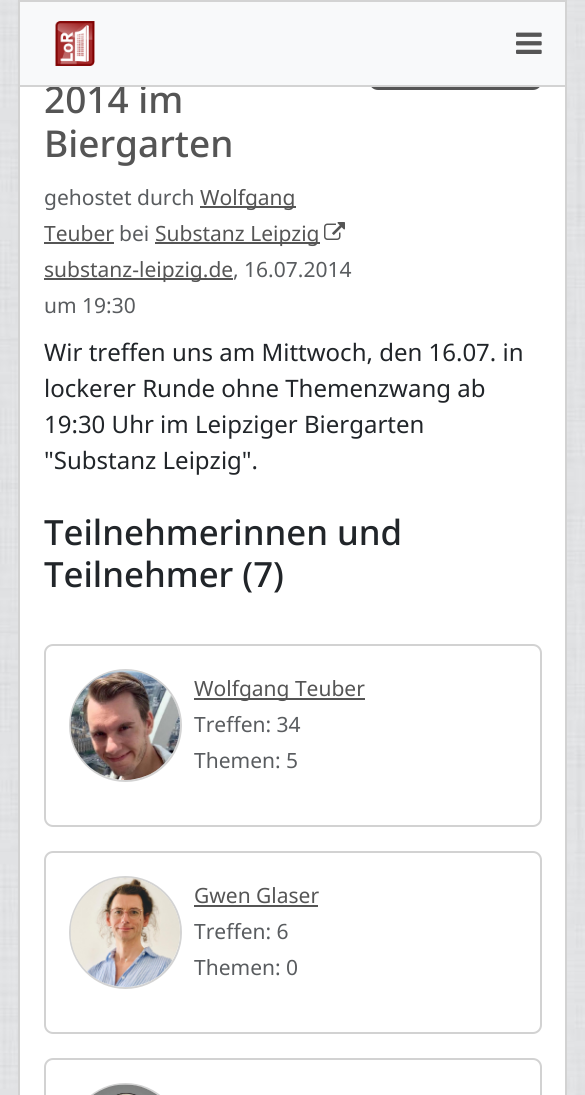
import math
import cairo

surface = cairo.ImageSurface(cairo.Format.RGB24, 585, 1095)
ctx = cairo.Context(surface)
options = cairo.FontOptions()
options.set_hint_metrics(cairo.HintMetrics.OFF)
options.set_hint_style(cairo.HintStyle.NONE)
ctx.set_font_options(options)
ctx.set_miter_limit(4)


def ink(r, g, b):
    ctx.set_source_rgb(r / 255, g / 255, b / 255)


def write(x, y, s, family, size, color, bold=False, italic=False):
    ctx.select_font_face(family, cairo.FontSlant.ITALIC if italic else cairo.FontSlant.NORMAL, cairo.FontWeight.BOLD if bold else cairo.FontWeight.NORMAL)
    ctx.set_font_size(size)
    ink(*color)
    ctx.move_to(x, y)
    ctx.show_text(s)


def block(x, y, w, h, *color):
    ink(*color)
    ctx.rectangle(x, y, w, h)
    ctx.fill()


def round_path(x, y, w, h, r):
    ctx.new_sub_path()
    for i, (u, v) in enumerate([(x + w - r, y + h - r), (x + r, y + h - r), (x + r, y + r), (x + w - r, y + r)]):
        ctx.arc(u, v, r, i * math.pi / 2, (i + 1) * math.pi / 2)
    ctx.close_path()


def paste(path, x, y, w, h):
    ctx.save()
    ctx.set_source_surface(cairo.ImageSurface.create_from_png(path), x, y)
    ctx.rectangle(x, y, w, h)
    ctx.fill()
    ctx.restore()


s1 = dict(family="Noto Sans Medium", size=37, color=(85, 85, 85))
s2 = dict(family="Noto Sans", size=21, color=(89, 92, 95))
s3 = dict(family="Noto Sans", size=21, color=(85, 85, 85))
s4 = dict(family="Noto Sans", size=24, color=(33, 37, 41))
s5 = dict(family="Noto Sans Medium", size=34.75, color=(33, 37, 41))

ink(255, 255, 255)
ctx.paint()
paste("pic1.png", 0, 0, 585, 1095)
block(20, 87, 545, 1008, 255, 255, 255)
ctx.rectangle(19, -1, 547, 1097)
ink(210, 210, 210)
ctx.stroke()
ink(85, 85, 85)
round_path(370, 34, 171, 55, 8)
ctx.fill_preserve()
ctx.stroke()
write(44, 113, "2014 im", **s1)
ink(248, 249, 250)
ctx.rectangle(19, 1, 547, 85)
ctx.fill_preserve()
ink(211, 211, 211)
ctx.stroke()
paste("pic2.png", 55, 21, 40, 45)
paste("pic3.png", 516, 32, 26, 22)
write(44, 157, "Biergarten", **s1)
write(44, 205, "gehostet durch", **s2)
block(200, 206, 96, 2, 85, 85, 85)
write(200, 205, "Wolfgang", **s3)
write(44, 241, "Teuber", **s3)
block(44, 242, 70, 2, 85, 85, 85)
write(119, 241, "bei", **s2)
block(155, 242, 165, 2, 85, 85, 85)
write(155, 241, "Substanz Leipzig", **s3)
paste("pic4.png", 324, 222, 21, 18)
block(44, 278, 189, 2, 85, 85, 85)
write(44, 277, "substanz-leipzig.de", **s3)
write(233, 277, ", 16.07.2014", **s2)
write(44, 313, "um 19:30", **s2)
write(44, 361, "Wir treffen uns am Mittwoch, den 16.07. in", **s4)
write(44, 397, "lockerer Runde ohne Themenzwang ab", **s4)
write(44, 433, "19:30 Uhr im Leipziger Biergarten", **s4)
write(44, 469, "\"Substanz Leipzig\".", **s4)
write(44, 545, "Teilnehmerinnen und", **s5)
write(44, 587, "Teilnehmer (7)", **s5)
round_path(45, 645, 496, 181, 8)
ink(210, 210, 210)
ctx.stroke()
ctx.arc(125.5, 725.5, 55.5, 0, 2 * math.pi)
ink(211, 211, 211)
ctx.stroke()
paste("pic5.png", 70, 670, 110, 110)
block(194, 698, 171, 2, 85, 85, 85)
write(194, 696, "Wolfgang Teuber", **s3)
write(194, 732, "Treffen: 34", **s2)
write(194, 768, "Themen: 5", **s2)
round_path(45, 852, 496, 181, 8)
ink(210, 210, 210)
ctx.stroke()
ctx.arc(125.5, 932.5, 55.5, 0, 2 * math.pi)
ink(211, 211, 211)
ctx.stroke()
paste("pic6.png", 70, 877, 110, 110)
write(194, 903, "Gwen Glaser", **s3)
block(194, 905, 124, 2, 85, 85, 85)
write(194, 939, "Treffen: 6", **s2)
write(194, 975, "Themen: 0", **s2)
round_path(45, 1059, 496, 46, 8)
ink(210, 210, 210)
ctx.stroke()
round_path(70, 1084, 111, 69, 55.5)
ink(211, 211, 211)
ctx.stroke()
paste("pic7.png", 93, 1084, 64, 11)
surface.write_to_png("screenshot.png")
